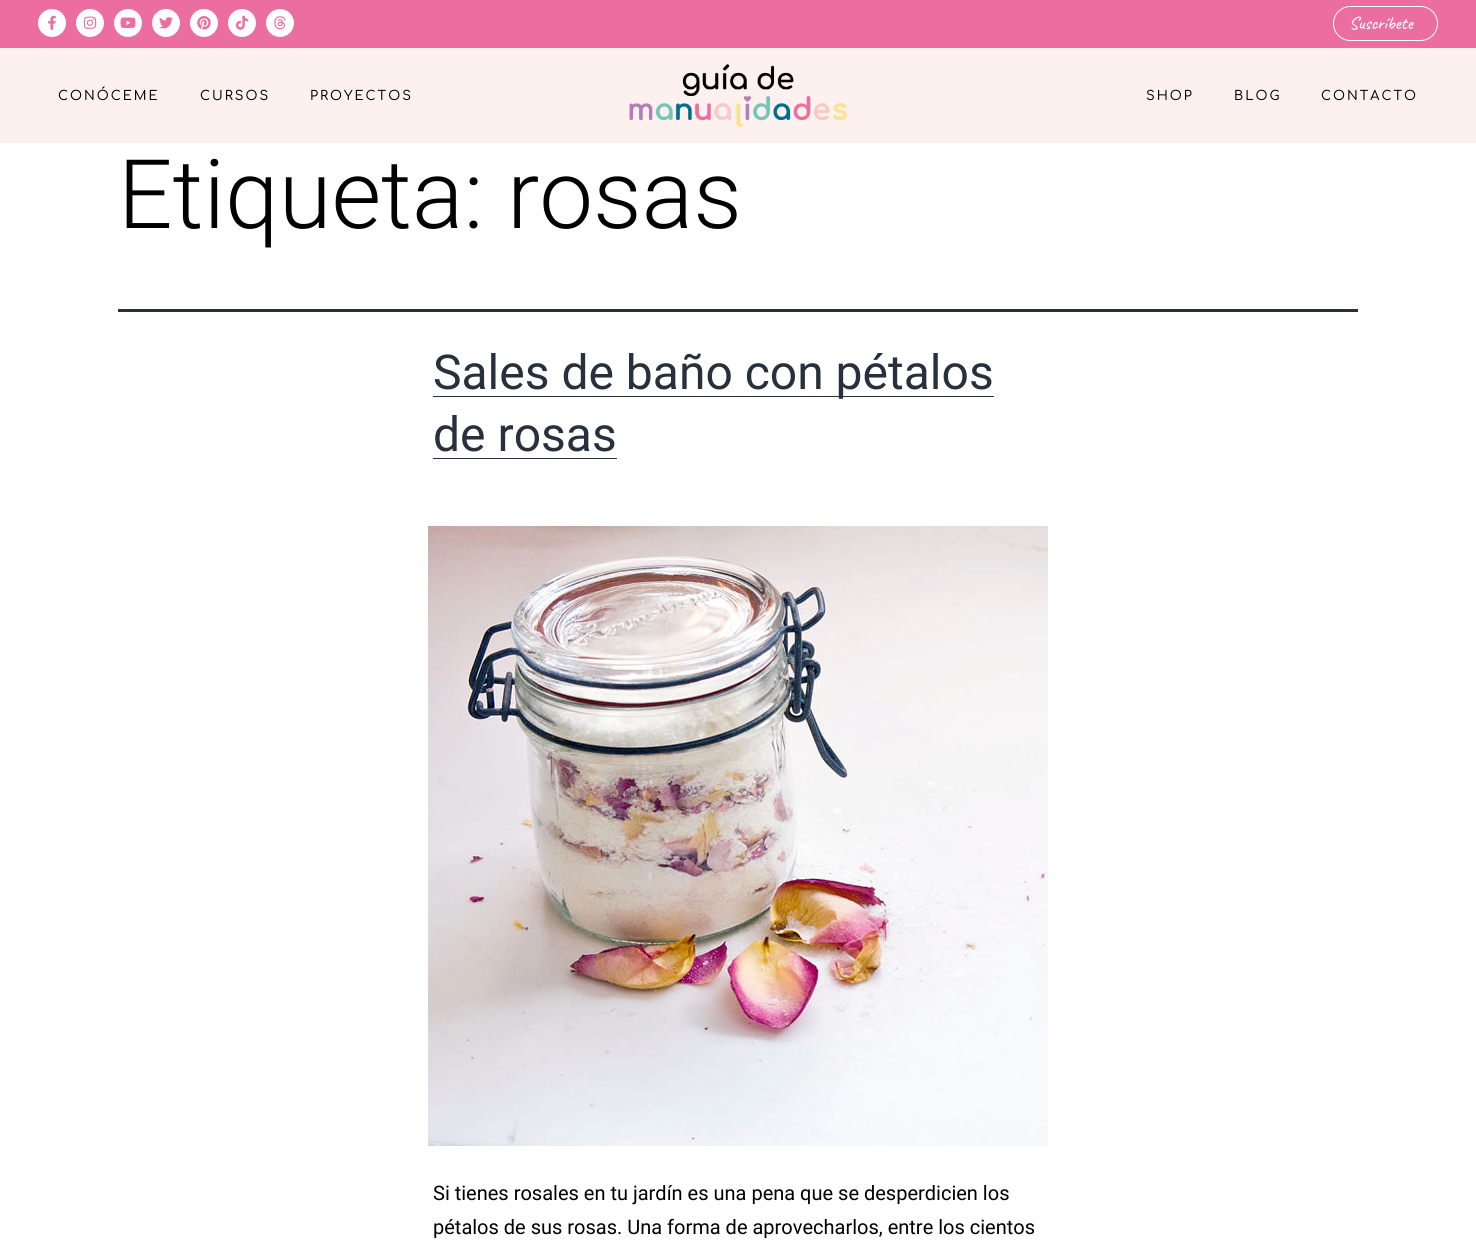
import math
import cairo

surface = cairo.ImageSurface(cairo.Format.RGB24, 1476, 1241)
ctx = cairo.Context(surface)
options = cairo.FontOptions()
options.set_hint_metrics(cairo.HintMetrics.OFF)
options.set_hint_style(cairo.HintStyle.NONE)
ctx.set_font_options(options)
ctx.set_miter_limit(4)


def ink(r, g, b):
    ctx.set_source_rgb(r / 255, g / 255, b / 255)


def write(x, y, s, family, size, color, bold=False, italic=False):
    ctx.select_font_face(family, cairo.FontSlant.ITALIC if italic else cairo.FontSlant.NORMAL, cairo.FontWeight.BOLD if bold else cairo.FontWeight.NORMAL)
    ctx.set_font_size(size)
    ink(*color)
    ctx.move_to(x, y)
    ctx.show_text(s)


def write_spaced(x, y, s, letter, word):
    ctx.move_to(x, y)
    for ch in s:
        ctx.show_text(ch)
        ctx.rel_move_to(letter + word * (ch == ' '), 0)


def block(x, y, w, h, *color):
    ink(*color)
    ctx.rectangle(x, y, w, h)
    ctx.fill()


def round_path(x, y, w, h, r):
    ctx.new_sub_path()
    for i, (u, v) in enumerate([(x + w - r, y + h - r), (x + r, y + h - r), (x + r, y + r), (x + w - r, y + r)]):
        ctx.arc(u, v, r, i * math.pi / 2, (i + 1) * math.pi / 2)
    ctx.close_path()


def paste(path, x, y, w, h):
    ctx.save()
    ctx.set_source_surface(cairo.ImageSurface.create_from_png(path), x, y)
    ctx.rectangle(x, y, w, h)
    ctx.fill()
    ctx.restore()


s1 = dict(family="Caveat Medium", size=18, color=(255, 255, 255))
s2 = dict(family="Roboto Light", size=96, color=(0, 0, 0))
s3 = dict(family="Roboto", size=48, color=(40, 48, 61))
s4 = dict(family="Roboto", size=20, color=(0, 0, 0))

ink(255, 255, 255)
ctx.paint()
block(0, 0, 1476, 48, 236, 110, 160)
ink(255, 255, 255)
ctx.arc(52, 23, 14, 0, 2 * math.pi)
ctx.fill()
paste("pic1.png", 48, 15, 8, 15)
ctx.arc(90, 23, 14, 0, 2 * math.pi)
ctx.fill()
paste("pic2.png", 83, 16, 14, 13)
ctx.arc(128, 23, 14, 0, 2 * math.pi)
ctx.fill()
paste("pic3.png", 120, 17, 16, 11)
ctx.arc(166, 23, 14, 0, 2 * math.pi)
ctx.fill()
paste("pic4.png", 159, 17, 14, 12)
ctx.arc(204, 23, 14, 0, 2 * math.pi)
ctx.fill()
paste("pic5.png", 197, 16, 14, 14)
ctx.arc(242, 23, 14, 0, 2 * math.pi)
ctx.fill()
paste("pic6.png", 235, 15, 14, 15)
ctx.arc(280, 23, 14, 0, 2 * math.pi)
ctx.fill()
paste("pic7.png", 274, 16, 12, 14)
round_path(1333.5, 6.5, 104, 34, 17)
ctx.set_line_width(1)
ctx.stroke()
write(1349, 29, "Suscríbete", **s1)
block(0, 48, 1476, 95, 253, 241, 239)
ctx.select_font_face("Comfortaa Medium")
ctx.set_font_size(13)
ink(0, 0, 0)
write_spaced(58, 100, "CONÓCEME", 2, 0)
write_spaced(200, 100, "CURSOS", 2, 0)
write_spaced(310, 100, "PROYECTOS", 2, 0)
paste("pic8.png", 629, 64, 218, 64)
write_spaced(1146, 100, "SHOP", 2, 0)
write_spaced(1234, 100, "BLOG", 2, 0)
write_spaced(1321, 100, "CONTACTO", 2, 0)
block(118, 309, 1240, 3, 40, 48, 61)
write(118, 228, "Etiqueta: rosas", **s2)
block(433, 396, 561, 1, 40, 48, 61)
write(433, 389, "Sales de baño con pétalos", **s3)
write(433, 451, "de rosas", **s3)
block(433, 458, 184, 1, 40, 48, 61)
paste("pic9.png", 428, 526, 620, 620)
write(433, 1200, "Si tienes rosales en tu jardín es una pena que se desperdicien los", **s4)
write(433, 1234, "pétalos de sus rosas. Una forma de aprovecharlos, entre los cientos", **s4)
surface.write_to_png("screenshot.png")
